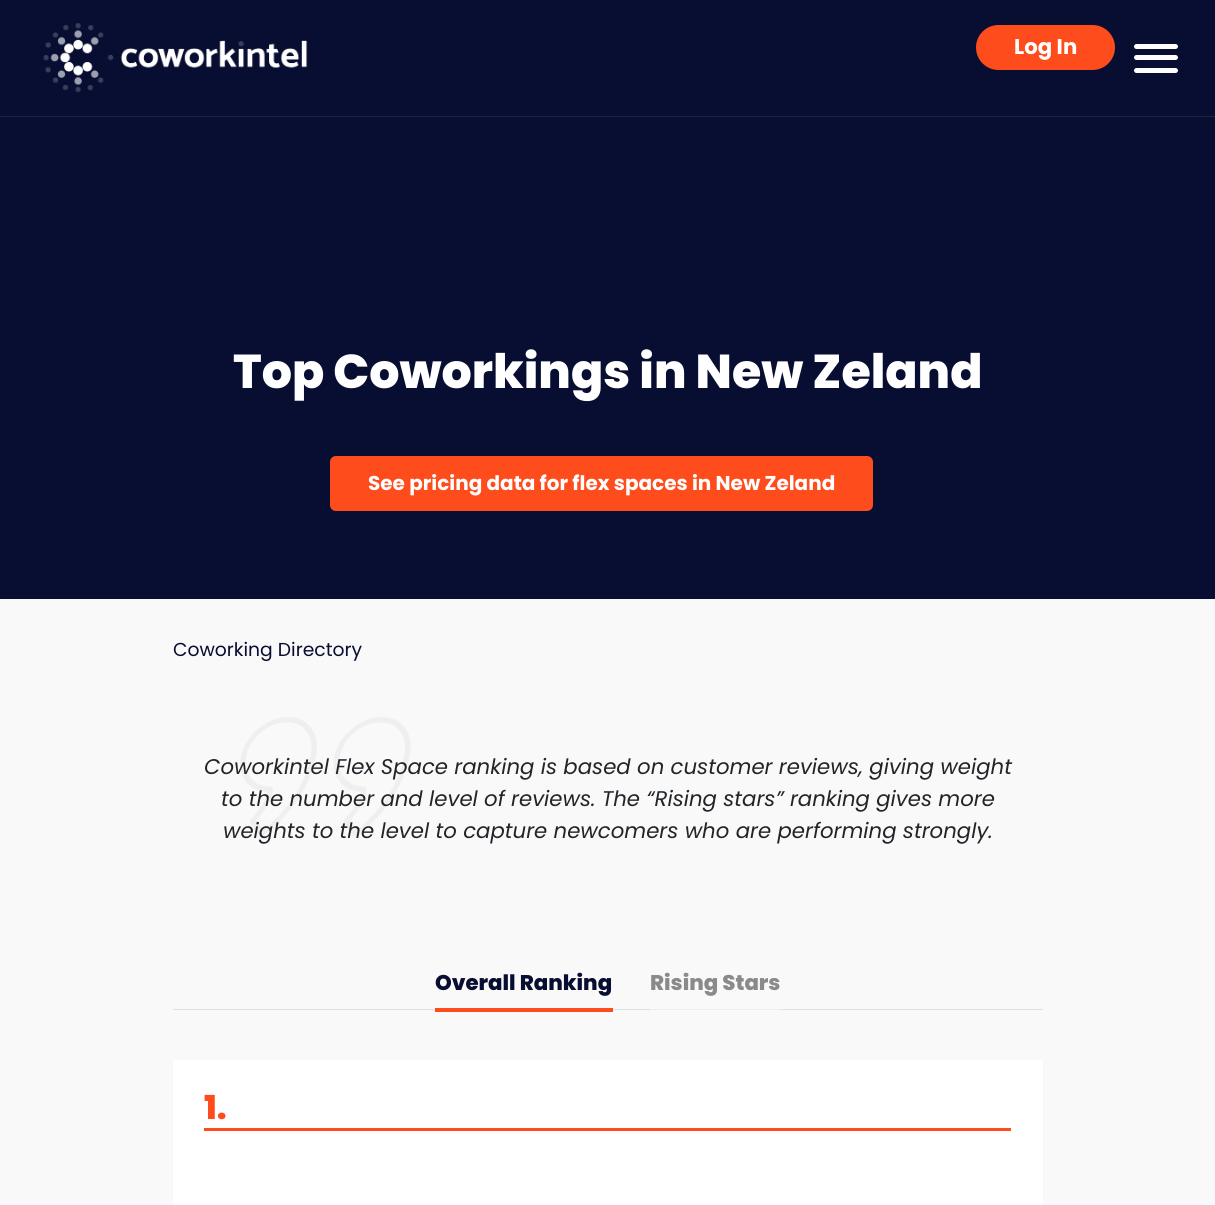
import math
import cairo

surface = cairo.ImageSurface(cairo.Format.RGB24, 1215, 1205)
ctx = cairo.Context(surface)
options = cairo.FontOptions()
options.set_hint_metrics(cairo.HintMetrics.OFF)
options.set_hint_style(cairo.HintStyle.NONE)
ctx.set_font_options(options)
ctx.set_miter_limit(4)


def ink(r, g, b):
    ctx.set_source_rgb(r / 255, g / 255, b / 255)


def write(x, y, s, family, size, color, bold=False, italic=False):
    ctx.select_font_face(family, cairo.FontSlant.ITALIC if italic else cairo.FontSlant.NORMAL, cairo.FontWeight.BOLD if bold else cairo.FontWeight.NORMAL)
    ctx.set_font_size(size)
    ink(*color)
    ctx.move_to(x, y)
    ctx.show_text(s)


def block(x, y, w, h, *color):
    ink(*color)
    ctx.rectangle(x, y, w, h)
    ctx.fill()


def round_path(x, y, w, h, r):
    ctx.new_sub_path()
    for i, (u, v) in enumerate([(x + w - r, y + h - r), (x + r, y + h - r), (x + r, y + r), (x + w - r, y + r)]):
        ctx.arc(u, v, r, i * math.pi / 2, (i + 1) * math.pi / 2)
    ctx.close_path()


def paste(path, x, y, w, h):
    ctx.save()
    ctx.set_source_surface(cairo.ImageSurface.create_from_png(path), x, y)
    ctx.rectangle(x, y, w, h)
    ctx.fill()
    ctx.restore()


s1 = dict(family="Poppins", size=21.25, color=(255, 255, 255), bold=True)
s2 = dict(family="Poppins ExtraBold", size=47.5, color=(255, 255, 255))
s3 = dict(family="Poppins", size=20, color=(255, 255, 255), bold=True)
s4 = dict(family="Poppins", size=18.75, color=(8, 14, 50))
s5 = dict(family="Poppins", size=21.25, color=(33, 37, 41), italic=True)
s6 = dict(family="Poppins ExtraBold", size=21.25, color=(8, 14, 50))
s7 = dict(family="Poppins ExtraBold", size=21.25, color=(140, 137, 137))
s8 = dict(family="Poppins ExtraBold", size=33, color=(254, 76, 28))

ink(249, 249, 249)
ctx.paint()
block(0, 0, 1215, 599, 8, 14, 50)
block(0, 116, 1215, 1, 31, 36, 66)
paste("pic1.png", 43, 23, 265, 70)
ink(254, 76, 28)
round_path(976, 25, 139, 45, 22.5)
ctx.fill()
write(1014, 54, "Log In", **s1)
round_path(1134, 44, 44, 5, 2.5)
ctx.fill()
round_path(1134, 55, 44, 5, 2.5)
ctx.fill()
round_path(1134, 68, 44, 5, 2.5)
ctx.fill()
write(233, 388, "Top Coworkings in New Zeland", **s2)
ink(254, 76, 28)
round_path(330, 456, 543, 55, 6)
ctx.fill()
write(368, 490, "See pricing data for flex spaces in New Zeland", **s3)
write(173, 656, "Coworking Directory", **s4)
paste("pic2.png", 240, 717, 171, 119)
write(204, 774, "Coworkintel Flex Space ranking is based on customer reviews, giving weight", **s5)
write(221, 806, "to the number and level of reviews. The “Rising stars” ranking gives more", **s5)
write(223, 838, "weights to the level to capture newcomers who are performing strongly.", **s5)
block(173, 1009, 870, 1, 222, 226, 230)
write(435, 990, "Overall Ranking", **s6)
block(435, 1008, 178, 4, 254, 76, 28)
block(650, 1009, 130, 1, 238, 238, 238)
write(650, 990, "Rising Stars", **s7)
block(173, 1060, 870, 145, 255, 255, 255)
block(204, 1128, 807, 3, 254, 76, 28)
write(204, 1119, "1.", **s8)
surface.write_to_png("screenshot.png")
